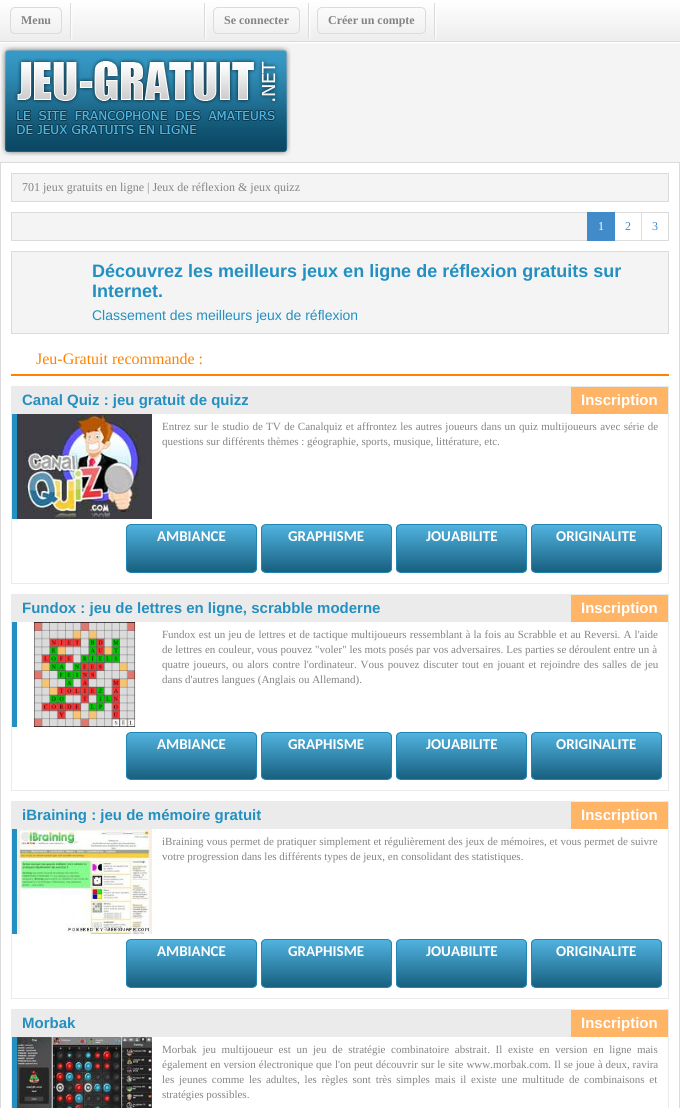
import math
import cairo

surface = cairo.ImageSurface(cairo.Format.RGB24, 680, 1108)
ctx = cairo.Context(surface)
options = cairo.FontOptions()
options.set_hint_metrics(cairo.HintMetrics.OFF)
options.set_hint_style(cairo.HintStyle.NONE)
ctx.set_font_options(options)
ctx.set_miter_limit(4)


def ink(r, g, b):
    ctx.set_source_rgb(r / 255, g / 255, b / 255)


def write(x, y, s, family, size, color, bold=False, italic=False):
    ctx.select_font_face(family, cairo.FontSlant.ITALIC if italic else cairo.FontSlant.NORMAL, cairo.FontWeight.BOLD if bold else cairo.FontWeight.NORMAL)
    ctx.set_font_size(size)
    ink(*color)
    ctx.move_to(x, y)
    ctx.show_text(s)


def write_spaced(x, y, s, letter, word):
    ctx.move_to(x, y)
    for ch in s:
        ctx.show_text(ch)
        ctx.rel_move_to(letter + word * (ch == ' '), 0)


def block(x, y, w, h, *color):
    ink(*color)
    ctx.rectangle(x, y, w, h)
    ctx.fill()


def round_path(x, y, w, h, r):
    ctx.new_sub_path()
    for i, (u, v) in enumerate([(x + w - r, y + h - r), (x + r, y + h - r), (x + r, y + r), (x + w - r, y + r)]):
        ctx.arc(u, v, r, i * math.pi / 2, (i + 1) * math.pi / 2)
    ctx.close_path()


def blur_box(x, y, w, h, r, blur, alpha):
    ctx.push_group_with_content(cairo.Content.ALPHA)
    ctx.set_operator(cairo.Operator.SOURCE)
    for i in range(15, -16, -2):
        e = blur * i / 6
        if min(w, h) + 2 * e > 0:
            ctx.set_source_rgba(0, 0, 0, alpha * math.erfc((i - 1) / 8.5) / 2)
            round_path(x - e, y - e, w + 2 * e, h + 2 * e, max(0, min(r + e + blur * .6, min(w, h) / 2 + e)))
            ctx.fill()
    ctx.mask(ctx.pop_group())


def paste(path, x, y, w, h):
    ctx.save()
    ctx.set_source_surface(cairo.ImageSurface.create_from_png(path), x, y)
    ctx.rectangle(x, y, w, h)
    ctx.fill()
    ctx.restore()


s1 = dict(family="Liberation Serif", size=12, color=(132, 132, 132), bold=True)
s2 = dict(family="Liberation Serif", size=12, color=(132, 132, 132))
s3 = dict(family="Liberation Serif", size=12, color=(255, 255, 255))
s4 = dict(family="Liberation Serif", size=12, color=(66, 139, 202))
s5 = dict(family="Liberation Sans", size=18, color=(35, 144, 193), bold=True)
s6 = dict(family="Liberation Sans", size=14, color=(35, 144, 193))
s7 = dict(family="Liberation Serif", size=16, color=(255, 130, 0))
s8 = dict(family="Liberation Sans", size=15, color=(35, 144, 193), bold=True)
s9 = dict(family="Liberation Sans", size=15, color=(255, 255, 255), bold=True)
s10 = dict(family="Liberation Serif", size=11, color=(132, 132, 132))
s11 = dict(family="Carlito", size=15, color=(255, 255, 255), bold=True)

ink(244, 244, 244)
ctx.paint()
ink(255, 255, 255)
blur_box(0, 1, 680, 42, 0, 0.5, 1)
gradient = cairo.LinearGradient(340, 0, 340, 41)
gradient.add_color_stop_rgba(0, 1, 1, 1, 1)
gradient.add_color_stop_rgba(1, 0.929, 0.929, 0.929, 1)
ctx.set_source(gradient)
ctx.rectangle(0, 0, 680, 41)
ctx.fill()
block(0, 41, 680, 1, 219, 219, 219)
round_path(10.5, 7.5, 51, 26, 4.5)
ctx.set_line_width(1)
ctx.stroke()
write(21, 24, "Menu", **s1)
ink(255, 255, 255)
blur_box(71, 3, 1, 36, 0, 0.5, 1)
block(70, 3, 1, 36, 219, 219, 219)
ink(255, 255, 255)
blur_box(205, 3, 1, 36, 0, 0.5, 1)
block(204, 3, 1, 36, 219, 219, 219)
round_path(213.5, 7.5, 86, 26, 4.5)
ctx.stroke()
write(224, 24, "Se connecter", **s1)
ink(255, 255, 255)
blur_box(309, 3, 1, 36, 0, 0.5, 1)
block(308, 3, 1, 36, 219, 219, 219)
round_path(317.5, 7.5, 108, 26, 4.5)
ctx.stroke()
write(328, 24, "Créer un compte", **s1)
ink(255, 255, 255)
blur_box(435, 3, 1, 36, 0, 0.5, 1)
block(434, 3, 1, 36, 219, 219, 219)
paste("pic1.png", 1, 46, 290, 110)
ink(255, 255, 255)
ctx.rectangle(0.5, 162.5, 679, 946)
ctx.fill_preserve()
ink(219, 219, 219)
ctx.stroke()
ink(244, 244, 244)
ctx.rectangle(11.5, 173.5, 657, 28)
ctx.fill_preserve()
ink(219, 219, 219)
ctx.stroke()
write(22, 191, "701 jeux gratuits en ligne | Jeux de réflexion & jeux quizz", **s2)
block(12, 213, 575, 27, 244, 244, 244)
ctx.rectangle(11.5, 212.5, 657, 28)
ink(219, 219, 219)
ctx.stroke()
ctx.rectangle(614.5, 212.5, 27, 28)
ink(221, 221, 221)
ctx.stroke()
block(587, 212, 28, 29, 66, 139, 202)
write(598, 230, "1", **s3)
write(625, 230, "2", **s4)
write(652, 230, "3", **s4)
ink(244, 244, 244)
ctx.rectangle(11.5, 251.5, 657, 82)
ctx.fill_preserve()
ink(219, 219, 219)
ctx.stroke()
write(92, 277, "Découvrez les meilleurs jeux en ligne de réflexion gratuits sur", **s5)
write(92, 297, "Internet.", **s5)
write(92, 320, "Classement des meilleurs jeux de réflexion", **s6)
block(11, 374, 658, 2, 255, 130, 0)
write(36, 364, "Jeu-Gratuit recommande :", **s7)
ctx.rectangle(11.5, 386.5, 657, 197)
ink(235, 235, 235)
ctx.stroke()
block(12, 387, 559, 27, 235, 235, 235)
write(22, 405, "Canal Quiz : jeu gratuit de quizz", **s8)
block(571, 387, 97, 27, 255, 180, 102)
write(581, 405, "Inscription", **s9)
block(12, 414, 5, 105, 35, 144, 193)
paste("pic2.png", 17, 414, 135, 105)
ctx.select_font_face("Liberation Serif")
ctx.set_font_size(11)
ink(132, 132, 132)
write_spaced(162, 430, "Entrez sur le studio de TV de Canalquiz et affrontez les autres joueurs dans un quiz multijoueurs avec série de", 0, 0.6)
write(162, 445, "questions sur différents thèmes : géographie, sports, musique, littérature, etc.", **s10)
ctx.save()
round_path(126, 524, 131, 49, 5)
ctx.clip()
gradient = cairo.LinearGradient(192, 525, 192, 572)
gradient.add_color_stop_rgba(0, 0.318, 0.702, 0.875, 1)
gradient.add_color_stop_rgba(1, 0.09, 0.376, 0.502, 1)
ctx.set_source(gradient)
ctx.rectangle(126, 525, 131, 47)
ctx.fill()
ctx.restore()
round_path(126.5, 524.5, 130, 48, 4.5)
ink(33, 134, 180)
ctx.stroke()
write(157, 541, "AMBIANCE", **s11)
ctx.save()
round_path(261, 524, 131, 49, 5)
ctx.clip()
gradient = cairo.LinearGradient(327, 525, 327, 572)
gradient.add_color_stop_rgba(0, 0.318, 0.702, 0.875, 1)
gradient.add_color_stop_rgba(1, 0.09, 0.376, 0.502, 1)
ctx.set_source(gradient)
ctx.rectangle(261, 525, 131, 47)
ctx.fill()
ctx.restore()
round_path(261.5, 524.5, 130, 48, 4.5)
ink(33, 134, 180)
ctx.stroke()
write(288, 541, "GRAPHISME", **s11)
ctx.save()
round_path(396, 524, 131, 49, 5)
ctx.clip()
gradient = cairo.LinearGradient(462, 525, 462, 572)
gradient.add_color_stop_rgba(0, 0.318, 0.702, 0.875, 1)
gradient.add_color_stop_rgba(1, 0.09, 0.376, 0.502, 1)
ctx.set_source(gradient)
ctx.rectangle(396, 525, 131, 47)
ctx.fill()
ctx.restore()
round_path(396.5, 524.5, 130, 48, 4.5)
ink(33, 134, 180)
ctx.stroke()
write(426, 541, "JOUABILITE", **s11)
ctx.save()
round_path(531, 524, 131, 49, 5)
ctx.clip()
gradient = cairo.LinearGradient(597, 525, 597, 572)
gradient.add_color_stop_rgba(0, 0.318, 0.702, 0.875, 1)
gradient.add_color_stop_rgba(1, 0.09, 0.376, 0.502, 1)
ctx.set_source(gradient)
ctx.rectangle(531, 525, 131, 47)
ctx.fill()
ctx.restore()
round_path(531.5, 524.5, 130, 48, 4.5)
ink(33, 134, 180)
ctx.stroke()
write(556, 541, "ORIGINALITE", **s11)
ctx.rectangle(11.5, 594.5, 657, 196)
ink(235, 235, 235)
ctx.stroke()
block(12, 595, 559, 27, 235, 235, 235)
write(22, 613, "Fundox : jeu de lettres en ligne, scrabble moderne", **s8)
block(571, 595, 97, 27, 255, 180, 102)
write(581, 613, "Inscription", **s9)
block(12, 622, 5, 105, 35, 144, 193)
paste("pic3.png", 34, 622, 102, 105)
ctx.select_font_face("Liberation Serif")
ctx.set_font_size(11)
ink(132, 132, 132)
write_spaced(162, 638, "Fundox est un jeu de lettres et de tactique multijoueurs ressemblant à la fois au Scrabble et au Reversi. A l'aide", 0, 0.4)
write_spaced(162, 653, "de lettres en couleur, vous pouvez \"voler\" les mots posés par vos adversaires. Les parties se déroulent entre un à", 0, 0.1)
write_spaced(162, 668, "quatre joueurs, ou alors contre l'ordinateur. Vous pouvez discuter tout en jouant et rejoindre des salles de jeu", 0, 1.1)
write(162, 683, "dans d'autres langues (Anglais ou Allemand).", **s10)
ctx.save()
round_path(126, 732, 131, 48, 5)
ctx.clip()
gradient = cairo.LinearGradient(192, 733, 192, 779)
gradient.add_color_stop_rgba(0, 0.318, 0.702, 0.875, 1)
gradient.add_color_stop_rgba(1, 0.09, 0.376, 0.502, 1)
ctx.set_source(gradient)
ctx.rectangle(126, 733, 131, 46)
ctx.fill()
ctx.restore()
round_path(126.5, 732.5, 130, 47, 4.5)
ink(33, 134, 180)
ctx.stroke()
write(157, 749, "AMBIANCE", **s11)
ctx.save()
round_path(261, 732, 131, 48, 5)
ctx.clip()
gradient = cairo.LinearGradient(327, 733, 327, 779)
gradient.add_color_stop_rgba(0, 0.318, 0.702, 0.875, 1)
gradient.add_color_stop_rgba(1, 0.09, 0.376, 0.502, 1)
ctx.set_source(gradient)
ctx.rectangle(261, 733, 131, 46)
ctx.fill()
ctx.restore()
round_path(261.5, 732.5, 130, 47, 4.5)
ink(33, 134, 180)
ctx.stroke()
write(288, 749, "GRAPHISME", **s11)
ctx.save()
round_path(396, 732, 131, 48, 5)
ctx.clip()
gradient = cairo.LinearGradient(462, 733, 462, 779)
gradient.add_color_stop_rgba(0, 0.318, 0.702, 0.875, 1)
gradient.add_color_stop_rgba(1, 0.09, 0.376, 0.502, 1)
ctx.set_source(gradient)
ctx.rectangle(396, 733, 131, 46)
ctx.fill()
ctx.restore()
round_path(396.5, 732.5, 130, 47, 4.5)
ink(33, 134, 180)
ctx.stroke()
write(426, 749, "JOUABILITE", **s11)
ctx.save()
round_path(531, 732, 131, 48, 5)
ctx.clip()
gradient = cairo.LinearGradient(597, 733, 597, 779)
gradient.add_color_stop_rgba(0, 0.318, 0.702, 0.875, 1)
gradient.add_color_stop_rgba(1, 0.09, 0.376, 0.502, 1)
ctx.set_source(gradient)
ctx.rectangle(531, 733, 131, 46)
ctx.fill()
ctx.restore()
round_path(531.5, 732.5, 130, 47, 4.5)
ink(33, 134, 180)
ctx.stroke()
write(556, 749, "ORIGINALITE", **s11)
ctx.rectangle(11.5, 801.5, 657, 197)
ink(235, 235, 235)
ctx.stroke()
block(12, 802, 559, 27, 235, 235, 235)
write(22, 820, "iBraining : jeu de mémoire gratuit", **s8)
block(571, 802, 97, 27, 255, 180, 102)
write(581, 820, "Inscription", **s9)
block(12, 829, 5, 105, 35, 144, 193)
paste("pic4.png", 17, 829, 135, 105)
ctx.select_font_face("Liberation Serif")
ctx.set_font_size(11)
ink(132, 132, 132)
write_spaced(162, 845, "iBraining vous permet de pratiquer simplement et régulièrement des jeux de mémoires, et vous permet de suivre", 0, 0.1)
write(162, 860, "votre progression dans les différents types de jeux, en consolidant des statistiques.", **s10)
ctx.save()
round_path(126, 939, 131, 49, 5)
ctx.clip()
gradient = cairo.LinearGradient(192, 940, 192, 987)
gradient.add_color_stop_rgba(0, 0.318, 0.702, 0.875, 1)
gradient.add_color_stop_rgba(1, 0.09, 0.376, 0.502, 1)
ctx.set_source(gradient)
ctx.rectangle(126, 940, 131, 47)
ctx.fill()
ctx.restore()
round_path(126.5, 939.5, 130, 48, 4.5)
ink(33, 134, 180)
ctx.stroke()
write(157, 956, "AMBIANCE", **s11)
ctx.save()
round_path(261, 939, 131, 49, 5)
ctx.clip()
gradient = cairo.LinearGradient(327, 940, 327, 987)
gradient.add_color_stop_rgba(0, 0.318, 0.702, 0.875, 1)
gradient.add_color_stop_rgba(1, 0.09, 0.376, 0.502, 1)
ctx.set_source(gradient)
ctx.rectangle(261, 940, 131, 47)
ctx.fill()
ctx.restore()
round_path(261.5, 939.5, 130, 48, 4.5)
ink(33, 134, 180)
ctx.stroke()
write(288, 956, "GRAPHISME", **s11)
ctx.save()
round_path(396, 939, 131, 49, 5)
ctx.clip()
gradient = cairo.LinearGradient(462, 940, 462, 987)
gradient.add_color_stop_rgba(0, 0.318, 0.702, 0.875, 1)
gradient.add_color_stop_rgba(1, 0.09, 0.376, 0.502, 1)
ctx.set_source(gradient)
ctx.rectangle(396, 940, 131, 47)
ctx.fill()
ctx.restore()
round_path(396.5, 939.5, 130, 48, 4.5)
ink(33, 134, 180)
ctx.stroke()
write(426, 956, "JOUABILITE", **s11)
ctx.save()
round_path(531, 939, 131, 49, 5)
ctx.clip()
gradient = cairo.LinearGradient(597, 940, 597, 987)
gradient.add_color_stop_rgba(0, 0.318, 0.702, 0.875, 1)
gradient.add_color_stop_rgba(1, 0.09, 0.376, 0.502, 1)
ctx.set_source(gradient)
ctx.rectangle(531, 940, 131, 47)
ctx.fill()
ctx.restore()
round_path(531.5, 939.5, 130, 48, 4.5)
ink(33, 134, 180)
ctx.stroke()
write(556, 956, "ORIGINALITE", **s11)
ctx.rectangle(11.5, 1009.5, 657, 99)
ink(235, 235, 235)
ctx.stroke()
block(12, 1010, 559, 27, 235, 235, 235)
write(22, 1028, "Morbak", **s8)
block(571, 1010, 97, 27, 255, 180, 102)
write(581, 1028, "Inscription", **s9)
block(12, 1037, 5, 71, 35, 144, 193)
paste("pic5.png", 17, 1037, 135, 71)
ctx.select_font_face("Liberation Serif")
ctx.set_font_size(11)
ink(132, 132, 132)
write_spaced(162, 1053, "Morbak jeu multijoueur est un jeu de stratégie combinatoire abstrait. Il existe en version en ligne mais", 0, 2.9)
write_spaced(162, 1068, "également en version électronique que l'on peut découvrir sur le site www.morbak.com. Il se joue à deux, ravira", 0, 0.2)
write_spaced(162, 1083, "les jeunes comme les adultes, les règles sont très simples mais il existe une multitude de combinaisons et", 0, 2)
write(162, 1098, "stratégies possibles.", **s10)
surface.write_to_png("screenshot.png")
